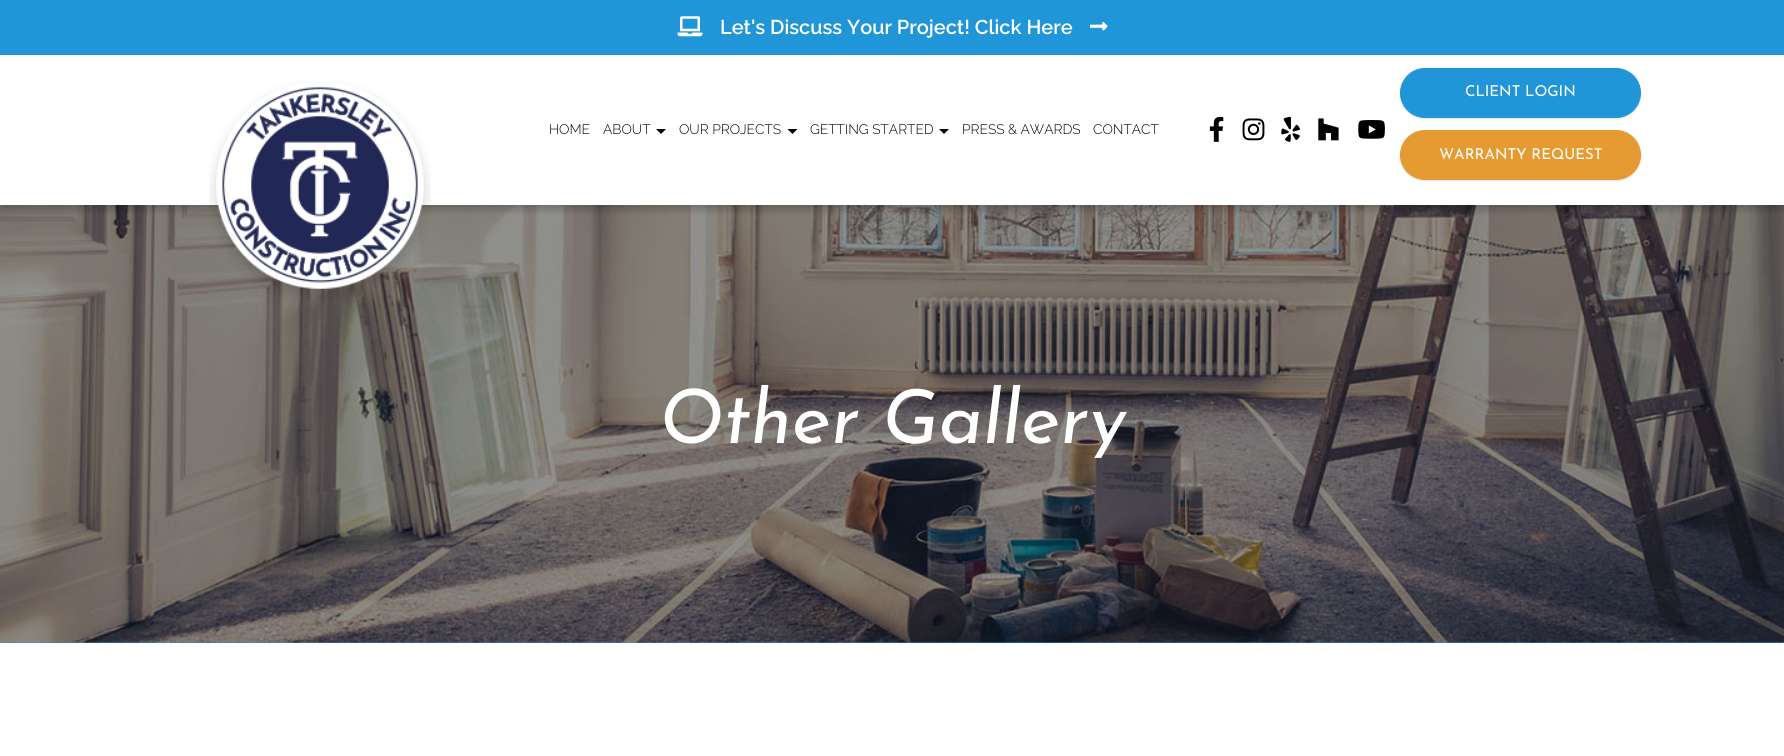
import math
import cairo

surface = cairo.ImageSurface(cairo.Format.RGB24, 1784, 756)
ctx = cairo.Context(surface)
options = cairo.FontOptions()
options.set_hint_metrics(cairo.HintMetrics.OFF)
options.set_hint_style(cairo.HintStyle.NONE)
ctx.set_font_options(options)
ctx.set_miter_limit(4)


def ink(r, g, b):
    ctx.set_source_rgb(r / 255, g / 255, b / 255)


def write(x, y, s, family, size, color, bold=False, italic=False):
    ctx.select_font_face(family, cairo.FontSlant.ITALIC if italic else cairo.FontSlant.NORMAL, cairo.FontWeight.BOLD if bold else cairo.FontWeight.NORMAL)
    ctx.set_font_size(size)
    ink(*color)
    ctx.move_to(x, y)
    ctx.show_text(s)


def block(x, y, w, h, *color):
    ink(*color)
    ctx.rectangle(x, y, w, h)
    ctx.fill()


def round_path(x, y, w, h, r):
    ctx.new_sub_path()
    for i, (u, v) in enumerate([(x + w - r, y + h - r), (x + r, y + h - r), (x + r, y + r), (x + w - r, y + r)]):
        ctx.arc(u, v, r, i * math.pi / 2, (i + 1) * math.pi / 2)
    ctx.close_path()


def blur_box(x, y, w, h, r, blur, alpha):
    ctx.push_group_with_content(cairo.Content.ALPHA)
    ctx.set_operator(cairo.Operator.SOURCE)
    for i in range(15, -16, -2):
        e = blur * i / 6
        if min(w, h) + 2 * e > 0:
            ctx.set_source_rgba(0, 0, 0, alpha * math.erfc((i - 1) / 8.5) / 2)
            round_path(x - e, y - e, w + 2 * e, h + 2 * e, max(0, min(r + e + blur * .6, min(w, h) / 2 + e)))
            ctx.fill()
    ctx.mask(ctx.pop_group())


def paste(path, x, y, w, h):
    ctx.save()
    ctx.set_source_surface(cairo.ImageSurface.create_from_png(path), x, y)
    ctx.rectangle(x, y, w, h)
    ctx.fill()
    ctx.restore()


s1 = dict(family="Raleway SemiBold", size=20, color=(255, 255, 255))
s2 = dict(family="Raleway Light", size=13.75, color=(0, 0, 0))
s3 = dict(family="Josefin Sans", size=15, color=(255, 255, 255))
s4 = dict(family="Josefin Sans", size=75, color=(255, 255, 255), italic=True)

ink(255, 255, 255)
ctx.paint()
block(0, 0, 1784, 55, 32, 150, 217)
paste("pic1.png", 677, 16, 26, 21)
write(720, 34, "Let's Discuss Your Project! Click Here", **s1)
paste("pic2.png", 1090, 22, 18, 9)
block(0, 642, 1784, 1, 32, 150, 217)
paste("pic9.png", 0, 205, 1784, 438)
ctx.save()
ctx.rectangle(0, 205, 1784, 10)
ctx.clip()
ink(0, 0, 0)
blur_box(0, 60, 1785, 150, 0, 4, 0.2)
ctx.restore()
paste("pic3.png", 209, 81, 222, 220)
write(549, 134, "HOME", **s2)
write(603, 134, "ABOUT", **s2)
ctx.new_path()
ctx.move_to(656, 129)
ctx.line_to(666, 129)
ctx.line_to(661, 134)
ctx.close_path()
ctx.fill()
write(679, 134, "OUR PROJECTS", **s2)
ctx.new_path()
ctx.move_to(787.5, 129)
ctx.line_to(797.5, 129)
ctx.line_to(792.5, 134)
ctx.close_path()
ctx.fill()
write(810, 134, "GETTING STARTED", **s2)
ctx.new_path()
ctx.move_to(939, 129)
ctx.line_to(949, 129)
ctx.line_to(944, 134)
ctx.close_path()
ctx.fill()
write(962, 134, "PRESS & AWARDS", **s2)
write(1093, 134, "CONTACT", **s2)
paste("pic4.png", 1209, 116, 15, 26)
paste("pic5.png", 1242, 118, 23, 23)
paste("pic6.png", 1281, 116, 19, 26)
paste("pic7.png", 1318, 118, 21, 23)
paste("pic8.png", 1358, 120, 27, 19)
ink(0, 0, 0)
blur_box(1400, 69, 241, 50, 25, 1, 0.1)
ink(32, 150, 217)
round_path(1400.5, 68.5, 240, 49, 24.5)
ctx.fill_preserve()
ctx.set_line_width(1)
ctx.stroke()
write(1465, 96, "CLIENT LOGIN", **s3)
ink(0, 0, 0)
blur_box(1400, 131, 241, 50, 25, 1, 0.1)
ink(230, 155, 50)
round_path(1400.5, 130.5, 240, 49, 24.5)
ctx.fill_preserve()
ctx.stroke()
write(1439, 159, "WARRANTY REQUEST", **s3)
write(659, 443, "Other Gallery", **s4)
surface.write_to_png("screenshot.png")
